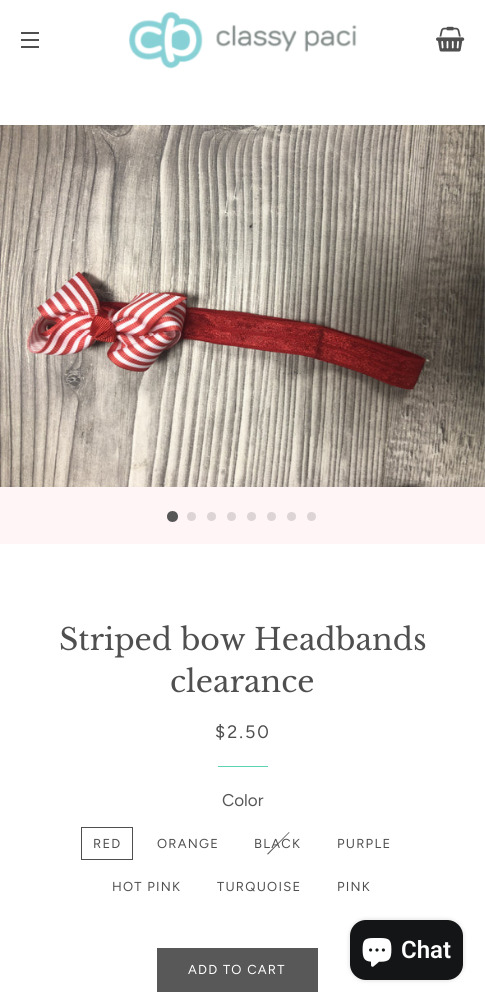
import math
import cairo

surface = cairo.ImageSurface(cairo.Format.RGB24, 485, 1001)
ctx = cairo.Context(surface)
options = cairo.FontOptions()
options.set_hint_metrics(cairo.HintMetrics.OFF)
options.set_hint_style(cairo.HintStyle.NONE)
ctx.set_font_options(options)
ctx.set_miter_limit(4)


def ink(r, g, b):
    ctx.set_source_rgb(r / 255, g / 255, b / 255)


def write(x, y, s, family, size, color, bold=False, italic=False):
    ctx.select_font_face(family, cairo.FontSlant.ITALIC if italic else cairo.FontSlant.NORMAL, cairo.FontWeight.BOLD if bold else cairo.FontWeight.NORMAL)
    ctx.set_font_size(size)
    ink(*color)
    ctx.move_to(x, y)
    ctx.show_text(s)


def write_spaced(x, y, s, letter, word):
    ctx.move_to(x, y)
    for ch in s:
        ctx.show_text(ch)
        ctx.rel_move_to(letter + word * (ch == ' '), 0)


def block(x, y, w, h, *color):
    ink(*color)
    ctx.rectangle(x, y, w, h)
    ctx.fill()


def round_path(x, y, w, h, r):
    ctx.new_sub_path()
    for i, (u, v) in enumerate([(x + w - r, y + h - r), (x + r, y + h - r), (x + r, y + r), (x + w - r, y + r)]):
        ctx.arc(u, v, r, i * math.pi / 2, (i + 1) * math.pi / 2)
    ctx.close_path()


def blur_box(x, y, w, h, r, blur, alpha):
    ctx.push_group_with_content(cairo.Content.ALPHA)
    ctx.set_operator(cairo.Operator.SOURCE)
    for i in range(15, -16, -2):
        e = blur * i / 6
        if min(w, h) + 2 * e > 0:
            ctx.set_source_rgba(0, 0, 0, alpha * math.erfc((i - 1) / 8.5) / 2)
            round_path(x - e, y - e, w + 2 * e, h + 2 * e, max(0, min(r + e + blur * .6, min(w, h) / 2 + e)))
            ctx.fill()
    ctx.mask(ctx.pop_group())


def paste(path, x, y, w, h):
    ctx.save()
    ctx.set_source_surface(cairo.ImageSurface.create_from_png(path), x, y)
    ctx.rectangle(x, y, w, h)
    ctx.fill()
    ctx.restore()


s1 = dict(family="Libre Baskerville", size=30, color=(79, 79, 79))
s2 = dict(family="Figtree", size=17, color=(86, 86, 86))
s3 = dict(family="Roboto SemiBold", size=24, color=(255, 255, 255))

ink(255, 255, 255)
ctx.paint()
block(21, 32, 18, 2, 79, 79, 79)
block(21, 39, 18, 2, 79, 79, 79)
block(21, 46, 18, 2, 79, 79, 79)
paste("pic1.png", 129, 11, 228, 58)
paste("pic2.png", 436, 26, 29, 26)
paste("pic3.png", 0, 125, 485, 362)
block(0, 487, 485, 57, 255, 244, 246)
ink(86, 86, 86)
ctx.arc(172.5, 516.5, 4.5, 0, 2 * math.pi)
ctx.fill_preserve()
ctx.stroke()
ink(221, 212, 214)
ctx.arc(191.5, 516.5, 4.5, 0, 2 * math.pi)
ctx.fill()
ctx.arc(211.5, 516.5, 4.5, 0, 2 * math.pi)
ctx.fill()
ctx.arc(231.5, 516.5, 4.5, 0, 2 * math.pi)
ctx.fill()
ctx.arc(251.5, 516.5, 4.5, 0, 2 * math.pi)
ctx.fill()
ctx.arc(271.5, 516.5, 4.5, 0, 2 * math.pi)
ctx.fill()
ctx.arc(291.5, 516.5, 4.5, 0, 2 * math.pi)
ctx.fill()
ctx.arc(311.5, 516.5, 4.5, 0, 2 * math.pi)
ctx.fill()
write(59, 650, "Striped bow Headbands", **s1)
write(170, 692, "clearance", **s1)
ctx.select_font_face("Figtree")
ctx.set_font_size(18)
write_spaced(215, 738, "$2.50", 2, 0)
block(218, 766, 50, 1, 93, 210, 180)
write(222, 806, "Color", **s2)
ctx.rectangle(81.5, 827.5, 51, 32)
ink(79, 79, 79)
ctx.set_line_width(1)
ctx.stroke()
ctx.set_font_size(13)
write_spaced(93, 848, "RED", 1.25, 0)
write_spaced(157, 848, "ORANGE", 1.25, 0)
write_spaced(254, 848, "BLACK", 1.25, 0)
ink(86, 86, 86)
ctx.new_path()
ctx.move_to(289, 832)
ctx.line_to(289.5, 832.5)
ctx.line_to(268, 854.5)
ctx.line_to(267, 854)
ctx.close_path()
ctx.fill()
ink(79, 79, 79)
write_spaced(337, 848, "PURPLE", 1.25, 0)
write_spaced(112, 891, "HOT PINK", 1.25, 0)
write_spaced(217, 891, "TURQUOISE", 1.25, 0)
write_spaced(337, 891, "PINK", 1.25, 0)
block(157, 948, 161, 44, 88, 88, 88)
ink(255, 255, 255)
write_spaced(188, 974, "ADD TO CART", 1.25, 0)
ink(0, 0, 0)
blur_box(350, 920, 113, 60, 16, 2.5, 0.15)
ink(20, 21, 22)
round_path(350, 920, 113, 60, 16)
ctx.fill()
paste("pic4.png", 362, 938, 30, 29)
write(401, 958, "Chat", **s3)
surface.write_to_png("screenshot.png")
